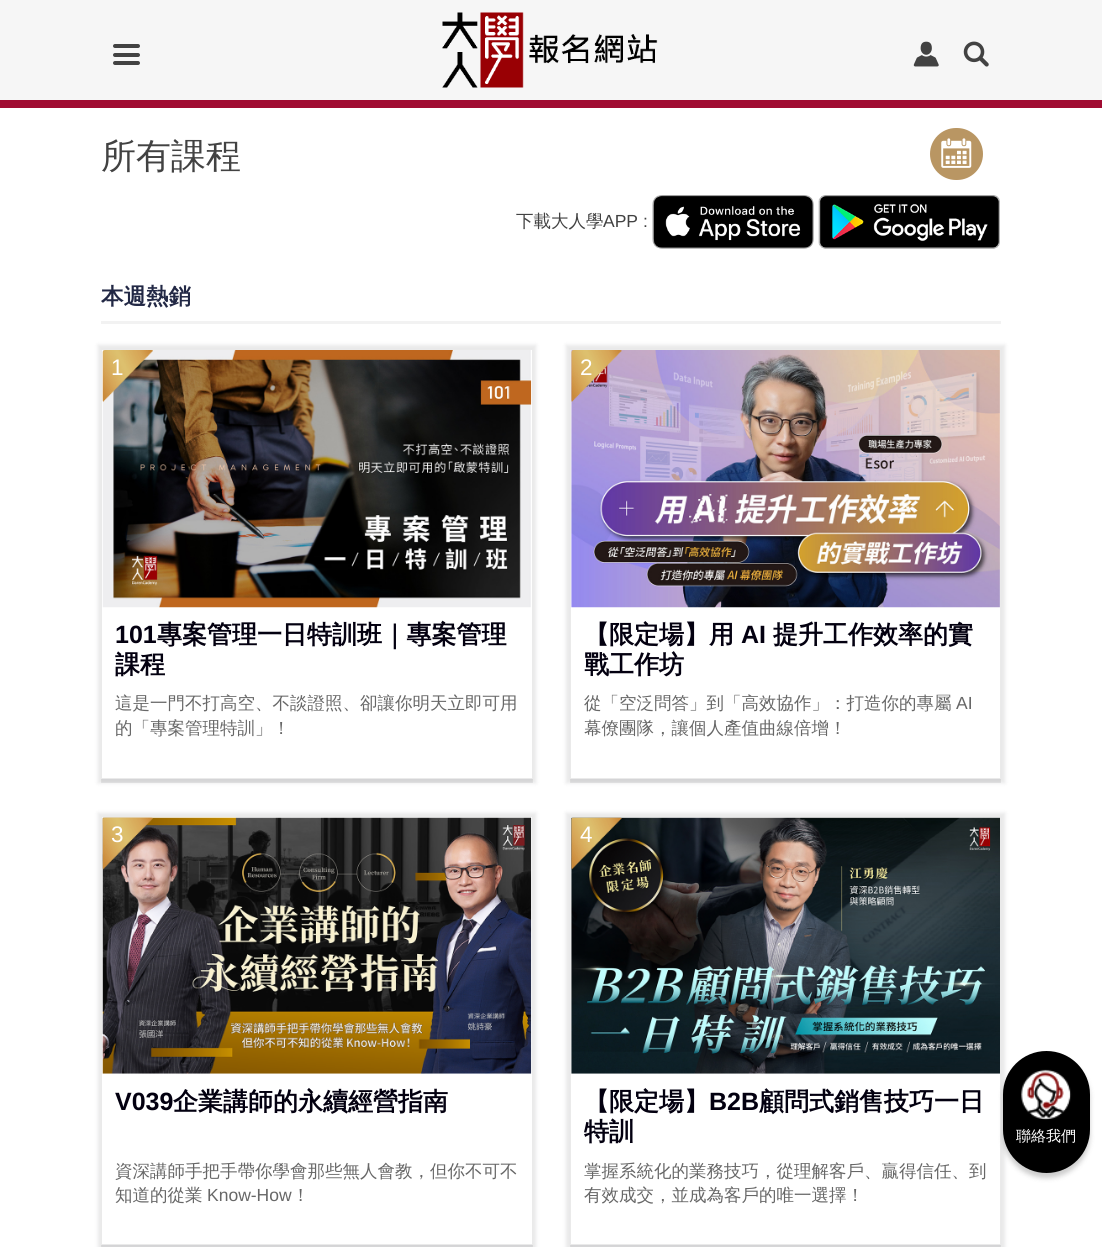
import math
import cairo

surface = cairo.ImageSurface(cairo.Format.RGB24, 1102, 1247)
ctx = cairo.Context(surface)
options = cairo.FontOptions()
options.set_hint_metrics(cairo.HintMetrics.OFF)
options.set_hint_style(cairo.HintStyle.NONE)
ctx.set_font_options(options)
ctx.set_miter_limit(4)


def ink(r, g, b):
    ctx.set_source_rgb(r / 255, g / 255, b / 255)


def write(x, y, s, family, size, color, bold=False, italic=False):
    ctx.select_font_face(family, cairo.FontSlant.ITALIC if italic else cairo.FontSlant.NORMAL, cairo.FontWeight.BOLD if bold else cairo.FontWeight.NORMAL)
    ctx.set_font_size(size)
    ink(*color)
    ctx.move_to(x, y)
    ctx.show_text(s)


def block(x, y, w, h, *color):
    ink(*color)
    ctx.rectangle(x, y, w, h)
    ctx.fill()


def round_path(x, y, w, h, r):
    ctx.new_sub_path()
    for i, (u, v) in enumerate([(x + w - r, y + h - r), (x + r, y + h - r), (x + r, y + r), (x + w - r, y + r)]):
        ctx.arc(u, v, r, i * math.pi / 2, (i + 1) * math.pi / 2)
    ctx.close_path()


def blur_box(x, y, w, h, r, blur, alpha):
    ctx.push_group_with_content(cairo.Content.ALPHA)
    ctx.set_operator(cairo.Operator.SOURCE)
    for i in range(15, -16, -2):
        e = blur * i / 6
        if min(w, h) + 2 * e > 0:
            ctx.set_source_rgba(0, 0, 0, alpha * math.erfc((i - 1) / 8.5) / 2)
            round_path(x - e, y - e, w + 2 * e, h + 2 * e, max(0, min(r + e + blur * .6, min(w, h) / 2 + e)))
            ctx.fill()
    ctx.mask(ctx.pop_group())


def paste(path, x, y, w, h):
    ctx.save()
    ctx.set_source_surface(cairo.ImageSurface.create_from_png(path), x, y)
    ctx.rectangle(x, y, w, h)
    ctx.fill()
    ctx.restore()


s1 = dict(family="WenQuanYi Zen Hei Medium", size=35, color=(66, 66, 66))
s2 = dict(family="WenQuanYi Zen Hei Medium", size=17.5, color=(66, 66, 66))
s3 = dict(family="Liberation Sans", size=17.5, color=(66, 66, 66))
s4 = dict(family="WenQuanYi Zen Hei", size=22.5, color=(34, 40, 69), bold=True)
s5 = dict(family="Liberation Sans", size=22.5, color=(255, 255, 255))
s6 = dict(family="Liberation Sans", size=25, color=(3, 0, 16), bold=True)
s7 = dict(family="WenQuanYi Zen Hei", size=25, color=(3, 0, 16), bold=True)
s8 = dict(family="WenQuanYi Zen Hei Medium", size=17.5, color=(103, 103, 103))
s9 = dict(family="Liberation Sans", size=17.5, color=(103, 103, 103))
s10 = dict(family="WenQuanYi Zen Hei Medium", size=15, color=(255, 255, 255))

ink(255, 255, 255)
ctx.paint()
block(0, 0, 1102, 100, 246, 246, 246)
block(0, 100, 1102, 8, 160, 12, 50)
ink(66, 66, 66)
round_path(113, 44, 27, 4, 2)
ctx.fill()
round_path(113, 53, 27, 4, 2)
ctx.fill()
round_path(113, 61, 27, 4, 2)
ctx.fill()
paste("pic1.png", 442, 12, 216, 76)
paste("pic2.png", 913, 41, 26, 26)
paste("pic3.png", 963, 41, 26, 26)
ink(185, 150, 99)
round_path(930, 128, 53, 52, 26)
ctx.fill()
paste("pic4.png", 941, 138, 31, 30)
write(101, 168, "所有課程", **s1)
write(516, 227, "下載大人學", **s2)
write(603, 227, "APP :", **s3)
paste("pic5.png", 652, 195, 162, 54)
paste("pic6.png", 818, 195, 182, 54)
block(101, 321, 900, 3, 242, 242, 242)
write(101, 304, "本週熱銷", **s4)
ctx.save()
ctx.rectangle(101, 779, 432, 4)
ctx.clip()
ink(20, 23, 28)
blur_box(101, 353, 432, 430, 0, 0.5, 0.1)
ctx.restore()
ctx.save()
ctx.set_fill_rule(cairo.FillRule.EVEN_ODD)
ctx.new_path()
ctx.move_to(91, 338)
ctx.line_to(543, 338)
ctx.line_to(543, 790)
ctx.line_to(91, 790)
ctx.close_path()
ctx.move_to(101, 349)
ctx.line_to(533, 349)
ctx.line_to(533, 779)
ctx.line_to(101, 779)
ctx.close_path()
ctx.clip()
ink(20, 23, 28)
blur_box(98, 345, 438, 438, 0, 2, 0.1)
ctx.restore()
ctx.rectangle(101.5, 349.5, 431, 429)
ink(234, 234, 234)
ctx.set_line_width(1)
ctx.stroke()
paste("pic7.png", 102, 350, 430, 258)
paste("pic8.png", 102, 350, 51, 52)
write(111, 375, "1", **s5)
write(115, 643, "101", **s6)
write(157, 643, "專案管理一日特訓班｜專案管理", **s7)
write(115, 673, "課程", **s7)
write(115, 709, "這是一門不打高空、不談證照、卻讓你明天立即可用", **s8)
write(115, 734, "的「專案管理特訓」！", **s8)
ctx.save()
ctx.rectangle(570, 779, 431, 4)
ctx.clip()
ink(20, 23, 28)
blur_box(570, 353, 431, 430, 0, 0.5, 0.1)
ctx.restore()
ctx.save()
ctx.set_fill_rule(cairo.FillRule.EVEN_ODD)
ctx.new_path()
ctx.move_to(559, 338)
ctx.line_to(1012, 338)
ctx.line_to(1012, 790)
ctx.line_to(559, 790)
ctx.close_path()
ctx.move_to(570, 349)
ctx.line_to(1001, 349)
ctx.line_to(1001, 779)
ctx.line_to(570, 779)
ctx.close_path()
ctx.clip()
ink(20, 23, 28)
blur_box(566, 345, 439, 438, 0, 2, 0.1)
ctx.restore()
ctx.rectangle(570.5, 349.5, 430, 429)
ink(234, 234, 234)
ctx.stroke()
paste("pic9.png", 571, 350, 429, 258)
paste("pic10.png", 571, 350, 51, 52)
write(580, 375, "2", **s5)
write(584, 643, "【限定場】用", **s7)
write(741, 643, "AI", **s6)
write(773, 643, "提升工作效率的實", **s7)
write(584, 673, "戰工作坊", **s7)
write(584, 709, "從「空泛問答」到「高效協作」：打造你的專屬", **s8)
write(956, 709, "AI", **s9)
write(584, 734, "幕僚團隊，讓個人產值曲線倍增！", **s8)
ctx.save()
ctx.rectangle(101, 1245, 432, 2)
ctx.clip()
ink(20, 23, 28)
blur_box(101, 820, 432, 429, 0, 0.5, 0.1)
ctx.restore()
ctx.save()
ctx.set_fill_rule(cairo.FillRule.EVEN_ODD)
ctx.new_path()
ctx.move_to(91, 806)
ctx.line_to(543, 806)
ctx.line_to(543, 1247)
ctx.line_to(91, 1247)
ctx.close_path()
ctx.move_to(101, 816)
ctx.line_to(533, 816)
ctx.line_to(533, 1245)
ctx.line_to(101, 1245)
ctx.close_path()
ctx.clip()
ink(20, 23, 28)
blur_box(98, 813, 438, 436, 0, 2, 0.1)
ctx.restore()
ctx.rectangle(101.5, 816.5, 431, 428)
ink(234, 234, 234)
ctx.stroke()
paste("pic11.png", 102, 817, 430, 257)
paste("pic12.png", 102, 817, 51, 53)
write(111, 842, "3", **s5)
write(115, 1110, "V039", **s6)
write(173, 1110, "企業講師的永續經營指南", **s7)
write(115, 1177, "資深講師手把手帶你學會那些無人會教，但你不可不", **s8)
write(115, 1201, "知道的從業", **s8)
write(207, 1201, "Know-How", **s9)
write(292, 1201, "！", **s8)
ctx.save()
ctx.rectangle(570, 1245, 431, 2)
ctx.clip()
ink(20, 23, 28)
blur_box(570, 820, 431, 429, 0, 0.5, 0.1)
ctx.restore()
ctx.save()
ctx.set_fill_rule(cairo.FillRule.EVEN_ODD)
ctx.new_path()
ctx.move_to(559, 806)
ctx.line_to(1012, 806)
ctx.line_to(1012, 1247)
ctx.line_to(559, 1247)
ctx.close_path()
ctx.move_to(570, 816)
ctx.line_to(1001, 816)
ctx.line_to(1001, 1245)
ctx.line_to(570, 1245)
ctx.close_path()
ctx.clip()
ink(20, 23, 28)
blur_box(566, 813, 439, 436, 0, 2, 0.1)
ctx.restore()
ctx.rectangle(570.5, 816.5, 430, 428)
ink(234, 234, 234)
ctx.stroke()
paste("pic13.png", 571, 817, 429, 257)
paste("pic14.png", 571, 817, 51, 53)
write(580, 842, "4", **s5)
write(584, 1110, "【限定場】", **s7)
write(709, 1110, "B2B", **s6)
write(759, 1110, "顧問式銷售技巧一日", **s7)
write(584, 1140, "特訓", **s7)
write(584, 1177, "掌握系統化的業務技巧，從理解客戶、贏得信任、到", **s8)
write(584, 1201, "有效成交，並成為客戶的唯一選擇！", **s8)
ink(0, 0, 0)
blur_box(1003, 1056, 87, 122, 43.5, 2.5, 0.2)
ink(0, 0, 0)
round_path(1003, 1051, 87, 122, 43.5)
ctx.fill()
paste("pic15.png", 1021, 1069, 51, 51)
write(1016, 1141, "聯絡我們", **s10)
surface.write_to_png("screenshot.png")
